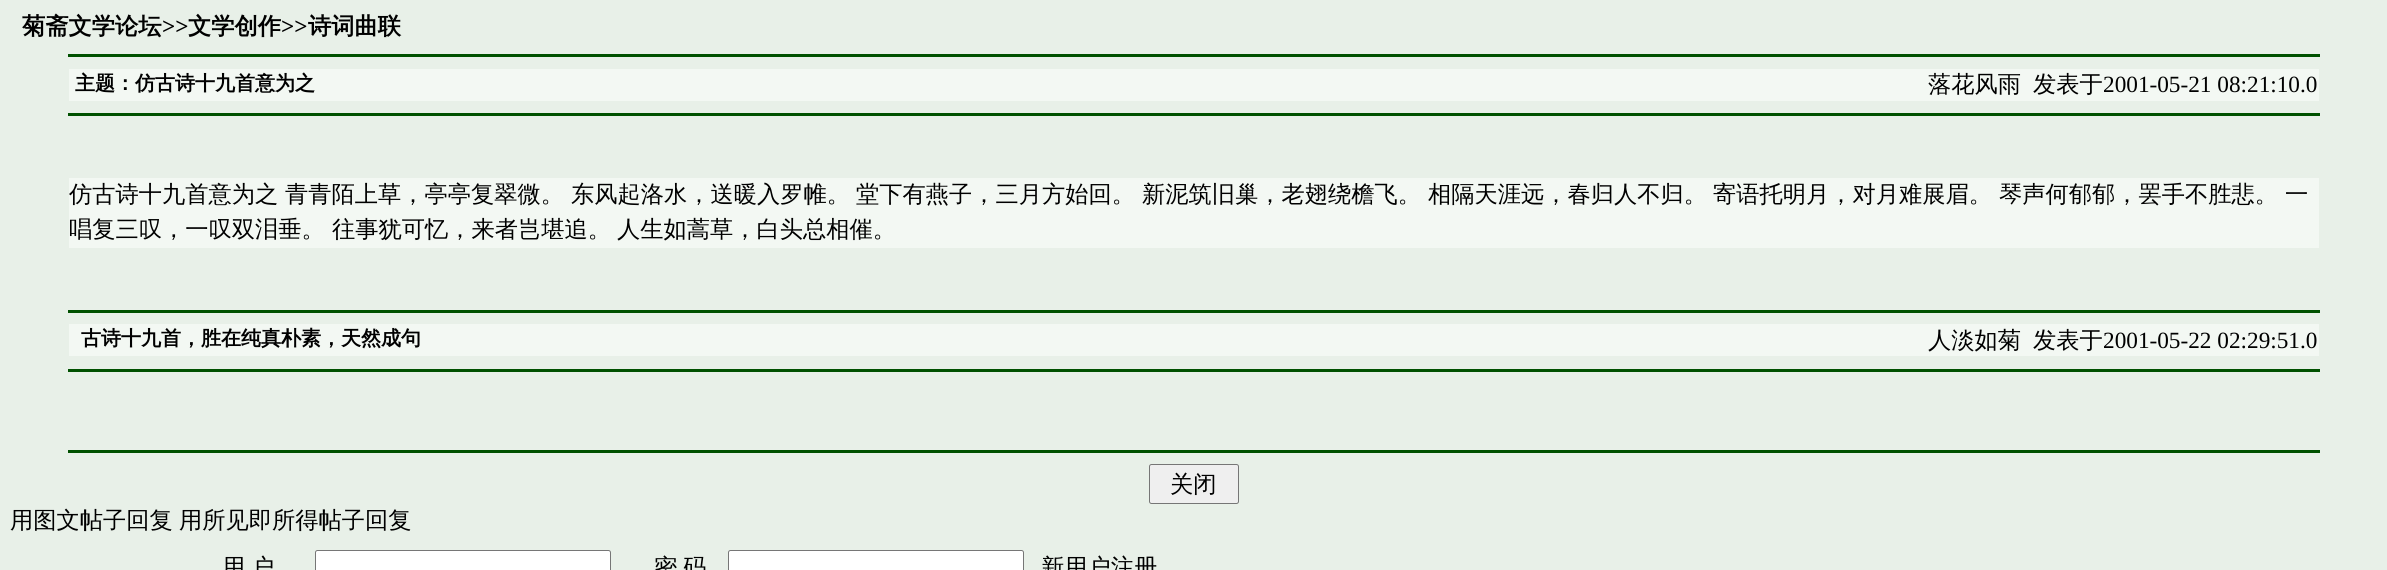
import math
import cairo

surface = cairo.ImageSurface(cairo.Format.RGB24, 2387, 570)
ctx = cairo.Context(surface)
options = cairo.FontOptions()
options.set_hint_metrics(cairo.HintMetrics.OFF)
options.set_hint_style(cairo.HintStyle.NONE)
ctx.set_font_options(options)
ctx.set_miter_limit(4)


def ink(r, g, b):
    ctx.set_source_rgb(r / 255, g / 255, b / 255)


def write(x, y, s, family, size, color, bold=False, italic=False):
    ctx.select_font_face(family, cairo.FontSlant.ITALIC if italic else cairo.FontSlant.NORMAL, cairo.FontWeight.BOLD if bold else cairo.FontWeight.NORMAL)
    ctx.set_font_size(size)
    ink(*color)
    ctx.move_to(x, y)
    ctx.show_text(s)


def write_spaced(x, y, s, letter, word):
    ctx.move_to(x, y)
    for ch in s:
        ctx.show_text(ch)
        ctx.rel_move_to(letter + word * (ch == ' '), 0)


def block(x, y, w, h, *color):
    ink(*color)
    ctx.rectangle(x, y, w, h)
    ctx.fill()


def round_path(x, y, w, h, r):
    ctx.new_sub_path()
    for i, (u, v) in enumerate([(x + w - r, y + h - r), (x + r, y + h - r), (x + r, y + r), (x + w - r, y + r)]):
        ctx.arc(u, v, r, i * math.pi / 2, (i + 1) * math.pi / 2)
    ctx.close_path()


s1 = dict(family="WenQuanYi Zen Hei", size=23.25, color=(0, 0, 0), bold=True)
s2 = dict(family="Liberation Serif", size=23.25, color=(0, 0, 0), bold=True)
s3 = dict(family="WenQuanYi Zen Hei", size=20, color=(0, 0, 0), bold=True)
s4 = dict(family="WenQuanYi Zen Hei Medium", size=23.25, color=(0, 0, 0))
s5 = dict(family="Liberation Serif", size=23.25, color=(0, 0, 0))

ink(232, 240, 232)
ctx.paint()
write(22, 34, "菊斋文学论坛", **s1)
write(162, 34, ">>", **s2)
write(188, 34, "文学创作", **s1)
write(281, 34, ">>", **s2)
write(308, 34, "诗词曲联", **s1)
block(68, 54, 2252, 3, 0, 81, 0)
block(69, 69, 2250, 32, 243, 248, 243)
write(75, 90, "主题：仿古诗十九首意为之", **s3)
write(1928, 92, "落花风雨", **s4)
write(2033, 92, "发表于", **s4)
write(2103, 92, "2001-05-21 08:21:10.0", **s5)
block(68, 113, 2252, 3, 0, 81, 0)
block(69, 178, 2250, 70, 243, 248, 243)
write(69, 202, "仿古诗十九首意为之", **s4)
write(285, 202, "青青陌上草，亭亭复翠微。", **s4)
write(571, 202, "东风起洛水，送暖入罗帷。", **s4)
write(856, 202, "堂下有燕子，三月方始回。", **s4)
write(1142, 202, "新泥筑旧巢，老翅绕檐飞。", **s4)
write(1428, 202, "相隔天涯远，春归人不归。", **s4)
write(1713, 202, "寄语托明月，对月难展眉。", **s4)
write(1999, 202, "琴声何郁郁，罢手不胜悲。", **s4)
write(2285, 202, "一", **s4)
write(69, 237, "唱复三叹，一叹双泪垂。", **s4)
write(332, 237, "往事犹可忆，来者岂堪追。", **s4)
write(617, 237, "人生如蒿草，白头总相催。", **s4)
block(68, 310, 2252, 3, 0, 81, 0)
block(69, 324, 2250, 32, 243, 248, 243)
write(81, 345, "古诗十九首，胜在纯真朴素，天然成句", **s3)
write(1928, 348, "人淡如菊", **s4)
write(2033, 348, "发表于", **s4)
write(2103, 348, "2001-05-22 02:29:51.0", **s5)
block(68, 369, 2252, 3, 0, 81, 0)
block(68, 450, 2252, 3, 0, 81, 0)
ink(239, 239, 239)
round_path(1149.5, 464.5, 89, 39, 2)
ctx.fill_preserve()
ink(118, 118, 118)
ctx.set_line_width(1)
ctx.stroke()
write(1170, 492, "关闭", **s4)
write(10, 528, "用图文帖子回复", **s4)
write(179, 528, "用所见即所得帖子回复", **s4)
write(222, 575, "用", **s4)
write(251, 575, "户", **s4)
ink(255, 255, 255)
round_path(315.5, 550.5, 295, 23, 2)
ctx.fill_preserve()
ink(118, 118, 118)
ctx.stroke()
ink(0, 0, 0)
write_spaced(654, 575, "密 码", 0, -1)
ink(255, 255, 255)
round_path(728.5, 550.5, 295, 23, 2)
ctx.fill_preserve()
ink(118, 118, 118)
ctx.stroke()
write(1041, 575, "新用户注册", **s4)
surface.write_to_png("screenshot.png")
